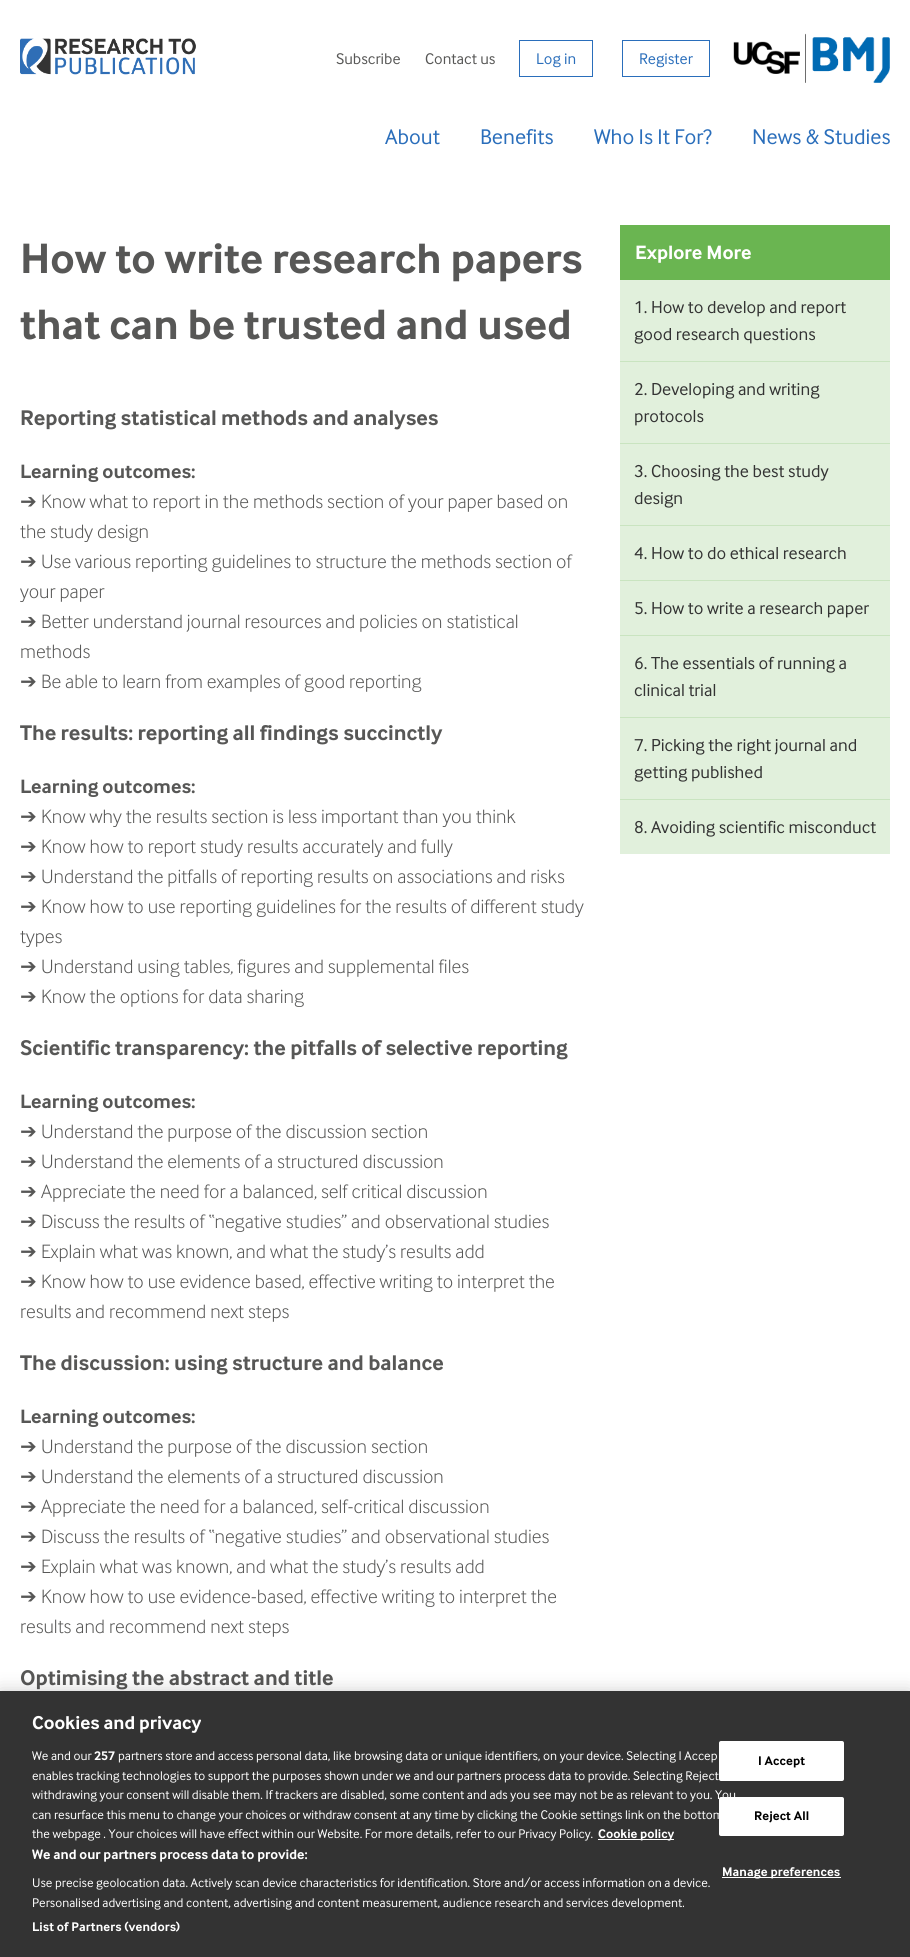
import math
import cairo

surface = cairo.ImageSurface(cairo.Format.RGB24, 910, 1957)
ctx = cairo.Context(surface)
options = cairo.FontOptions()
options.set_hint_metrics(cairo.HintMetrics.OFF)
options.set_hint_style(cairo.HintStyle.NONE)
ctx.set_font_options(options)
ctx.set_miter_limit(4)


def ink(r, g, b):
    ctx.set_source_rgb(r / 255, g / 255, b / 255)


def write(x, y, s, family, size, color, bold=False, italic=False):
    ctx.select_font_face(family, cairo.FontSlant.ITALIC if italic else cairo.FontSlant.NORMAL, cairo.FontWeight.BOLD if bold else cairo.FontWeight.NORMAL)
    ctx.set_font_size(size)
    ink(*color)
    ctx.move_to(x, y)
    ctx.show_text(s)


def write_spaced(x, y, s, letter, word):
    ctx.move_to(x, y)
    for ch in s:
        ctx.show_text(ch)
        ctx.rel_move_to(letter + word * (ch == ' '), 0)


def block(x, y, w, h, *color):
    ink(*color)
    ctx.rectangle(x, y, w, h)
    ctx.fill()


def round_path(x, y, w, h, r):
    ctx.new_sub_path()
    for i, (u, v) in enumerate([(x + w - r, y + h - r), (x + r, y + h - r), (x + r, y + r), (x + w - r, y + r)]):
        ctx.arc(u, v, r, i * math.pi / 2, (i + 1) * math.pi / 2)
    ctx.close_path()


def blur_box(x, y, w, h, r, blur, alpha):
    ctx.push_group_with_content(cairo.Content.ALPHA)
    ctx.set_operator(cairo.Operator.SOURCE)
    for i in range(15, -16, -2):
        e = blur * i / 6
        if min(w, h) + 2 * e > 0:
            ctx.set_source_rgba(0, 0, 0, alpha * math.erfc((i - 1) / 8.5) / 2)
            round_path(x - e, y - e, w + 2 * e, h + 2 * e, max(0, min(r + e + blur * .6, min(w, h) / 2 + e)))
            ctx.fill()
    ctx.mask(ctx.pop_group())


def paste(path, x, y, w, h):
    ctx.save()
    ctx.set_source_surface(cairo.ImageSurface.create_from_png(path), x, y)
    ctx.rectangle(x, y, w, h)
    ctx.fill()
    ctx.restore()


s1 = dict(family="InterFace", size=16, color=(87, 87, 86))
s2 = dict(family="InterFace", size=16, color=(42, 110, 187))
s3 = dict(family="InterFace", size=22, color=(42, 110, 187))
s4 = dict(family="InterFace", size=44, color=(87, 87, 86), bold=True)
s5 = dict(family="InterFace", size=22, color=(87, 87, 86), bold=True)
s6 = dict(family="InterFace", size=20, color=(87, 87, 86), bold=True)
s7 = dict(family="DejaVu Sans", size=20, color=(87, 87, 86))
s8 = dict(family="InterFace Light", size=20, color=(87, 87, 86))
s9 = dict(family="InterFace", size=20, color=(255, 255, 255), bold=True)
s10 = dict(family="InterFace", size=18, color=(51, 51, 51))
s11 = dict(family="InterFace", size=19.25, color=(255, 255, 255), bold=True)
s12 = dict(family="InterFace", size=13, color=(255, 255, 255))
s13 = dict(family="InterFace", size=13, color=(255, 255, 255), bold=True)
s14 = dict(family="InterFace", size=14.1, color=(255, 255, 255), bold=True)

ink(255, 255, 255)
ctx.paint()
paste("pic1.png", 20, 38, 176, 37)
write(336, 64, "Subscribe", **s1)
write(425, 64, "Contact us", **s1)
ctx.rectangle(519.5, 40.5, 73, 36)
ink(42, 110, 187)
ctx.set_line_width(1)
ctx.stroke()
write(536, 64, "Log in", **s2)
ctx.rectangle(622.5, 40.5, 87, 36)
ctx.stroke()
write(639, 64, "Register", **s2)
paste("pic2.png", 733, 33, 157, 50)
write(385, 144, "About", **s3)
write(480, 144, "Benefits", **s3)
write(594, 144, "Who Is It For?", **s3)
write(752, 144, "News & Studies", **s3)
write(20, 273, "How to write research papers", **s4)
write(20, 339, "that can be trusted and used", **s4)
write(20, 425, "Reporting statistical methods and analyses", **s5)
write(20, 478, "Learning outcomes:", **s6)
write(20, 508, "➔", **s7)
write(41, 508, "Know what to report in the methods section of your paper based on", **s8)
write(20, 538, "the study design", **s8)
write(20, 568, "➔", **s7)
write(41, 568, "Use various reporting guidelines to structure the methods section of", **s8)
write(20, 598, "your paper", **s8)
write(20, 628, "➔", **s7)
write(41, 628, "Better understand journal resources and policies on statistical", **s8)
write(20, 658, "methods", **s8)
write(20, 688, "➔", **s7)
write(41, 688, "Be able to learn from examples of good reporting", **s8)
write(20, 740, "The results: reporting all findings succinctly", **s5)
write(20, 793, "Learning outcomes:", **s6)
write(20, 823, "➔", **s7)
write(41, 823, "Know why the results section is less important than you think", **s8)
write(20, 853, "➔", **s7)
write(41, 853, "Know how to report study results accurately and fully", **s8)
write(20, 883, "➔", **s7)
write(41, 883, "Understand the pitfalls of reporting results on associations and risks", **s8)
write(20, 913, "➔", **s7)
write(41, 913, "Know how to use reporting guidelines for the results of different study", **s8)
write(20, 943, "types", **s8)
write(20, 973, "➔", **s7)
write(41, 973, "Understand using tables, figures and supplemental files", **s8)
write(20, 1003, "➔", **s7)
write(41, 1003, "Know the options for data sharing", **s8)
write(20, 1055, "Scientific transparency: the pitfalls of selective reporting", **s5)
write(20, 1108, "Learning outcomes:", **s6)
write(20, 1138, "➔", **s7)
write(41, 1138, "Understand the purpose of the discussion section", **s8)
write(20, 1168, "➔", **s7)
write(41, 1168, "Understand the elements of a structured discussion", **s8)
write(20, 1198, "➔", **s7)
write(41, 1198, "Appreciate the need for a balanced, self critical discussion", **s8)
write(20, 1228, "➔", **s7)
write(41, 1228, "Discuss the results of “negative studies” and observational studies", **s8)
write(20, 1258, "➔", **s7)
write(41, 1258, "Explain what was known, and what the study’s results add", **s8)
write(20, 1288, "➔", **s7)
write(41, 1288, "Know how to use evidence based, effective writing to interpret the", **s8)
write(20, 1318, "results and recommend next steps", **s8)
write(20, 1370, "The discussion: using structure and balance", **s5)
write(20, 1423, "Learning outcomes:", **s6)
write(20, 1453, "➔", **s7)
write(41, 1453, "Understand the purpose of the discussion section", **s8)
write(20, 1483, "➔", **s7)
write(41, 1483, "Understand the elements of a structured discussion", **s8)
write(20, 1513, "➔", **s7)
write(41, 1513, "Appreciate the need for a balanced, self-critical discussion", **s8)
write(20, 1543, "➔", **s7)
write(41, 1543, "Discuss the results of “negative studies” and observational studies", **s8)
write(20, 1573, "➔", **s7)
write(41, 1573, "Explain what was known, and what the study’s results add", **s8)
write(20, 1603, "➔", **s7)
write(41, 1603, "Know how to use evidence-based, effective writing to interpret the", **s8)
write(20, 1633, "results and recommend next steps", **s8)
write(20, 1685, "Optimising the abstract and title", **s5)
block(620, 225, 270, 55, 106, 181, 81)
write(635, 259, "Explore More", **s9)
block(620, 280, 270, 81, 225, 240, 220)
block(620, 361, 270, 1, 201, 228, 192)
write(634, 313, "1. How to develop and report", **s10)
write(634, 340, "good research questions", **s10)
block(620, 362, 270, 81, 225, 240, 220)
block(620, 443, 270, 1, 201, 228, 192)
write(634, 395, "2. Developing and writing", **s10)
write(634, 422, "protocols", **s10)
block(620, 444, 270, 81, 225, 240, 220)
block(620, 525, 270, 1, 201, 228, 192)
write(634, 477, "3. Choosing the best study", **s10)
write(634, 504, "design", **s10)
block(620, 526, 270, 54, 225, 240, 220)
block(620, 580, 270, 1, 201, 228, 192)
write(634, 559, "4. How to do ethical research", **s10)
block(620, 581, 270, 54, 225, 240, 220)
block(620, 635, 270, 1, 201, 228, 192)
write(634, 614, "5. How to write a research paper", **s10)
block(620, 636, 270, 81, 225, 240, 220)
block(620, 717, 270, 1, 201, 228, 192)
write(634, 669, "6. The essentials of running a", **s10)
write(634, 696, "clinical trial", **s10)
block(620, 718, 270, 81, 225, 240, 220)
block(620, 799, 270, 1, 201, 228, 192)
write(634, 751, "7. Picking the right journal and", **s10)
write(634, 778, "getting published", **s10)
block(620, 800, 270, 54, 225, 240, 220)
write(634, 833, "8. Avoiding scientific misconduct", **s10)
ink(0, 0, 0)
blur_box(0, 1691, 910, 266, 0, 9, 0.2)
block(0, 1691, 910, 266, 51, 51, 51)
write(32, 1729, "Cookies and privacy", **s11)
write(32, 1760, "We and our", **s12)
write(94, 1760, "257", **s13)
write(118, 1760, "partners store and access personal data, like browsing data or unique identifiers, on your device. Selecting I Accep", **s12)
write(32, 1780, "enables tracking technologies to support the purposes shown under we and our partners process data to provide. Selecting Reject", **s12)
write(32, 1799, "withdrawing your consent will disable them. If trackers are disabled, some content and ads you see may not be as relevant to you. You", **s12)
write(32, 1819, "can resurface this menu to change your choices or withdraw consent at any time by clicking the Cookie settings link on the bottom", **s12)
write(32, 1838, "the webpage . Your choices will have effect within our Website. For more details, refer to our Privacy Policy.", **s12)
block(598, 1839, 76, 1, 255, 255, 255)
write(598, 1838, "Cookie policy", **s13)
write(32, 1859, "We and our partners process data to provide:", **s14)
write(32, 1887, "Use precise geolocation data. Actively scan device characteristics for identification. Store and/or access information on a device.", **s12)
write(32, 1907, "Personalised advertising and content, advertising and content measurement, audience research and services development.", **s12)
ctx.select_font_face("InterFace", cairo.FontSlant.NORMAL, cairo.FontWeight.BOLD)
write_spaced(32, 1931, "List of Partners (vendors)", 0.1, 0)
round_path(719, 1741, 125, 40, 2)
ctx.fill()
ink(0, 0, 0)
write_spaced(758, 1765, "I Accept", 0.1, 0)
ink(255, 255, 255)
round_path(719, 1797, 125, 39, 2)
ctx.fill()
ink(0, 0, 0)
write_spaced(754, 1820, "Reject All", 0.1, 0)
block(722, 1877, 119, 1, 255, 255, 255)
write_spaced(722, 1876, "Manage preferences", 0.1, 0)
surface.write_to_png("screenshot.png")
